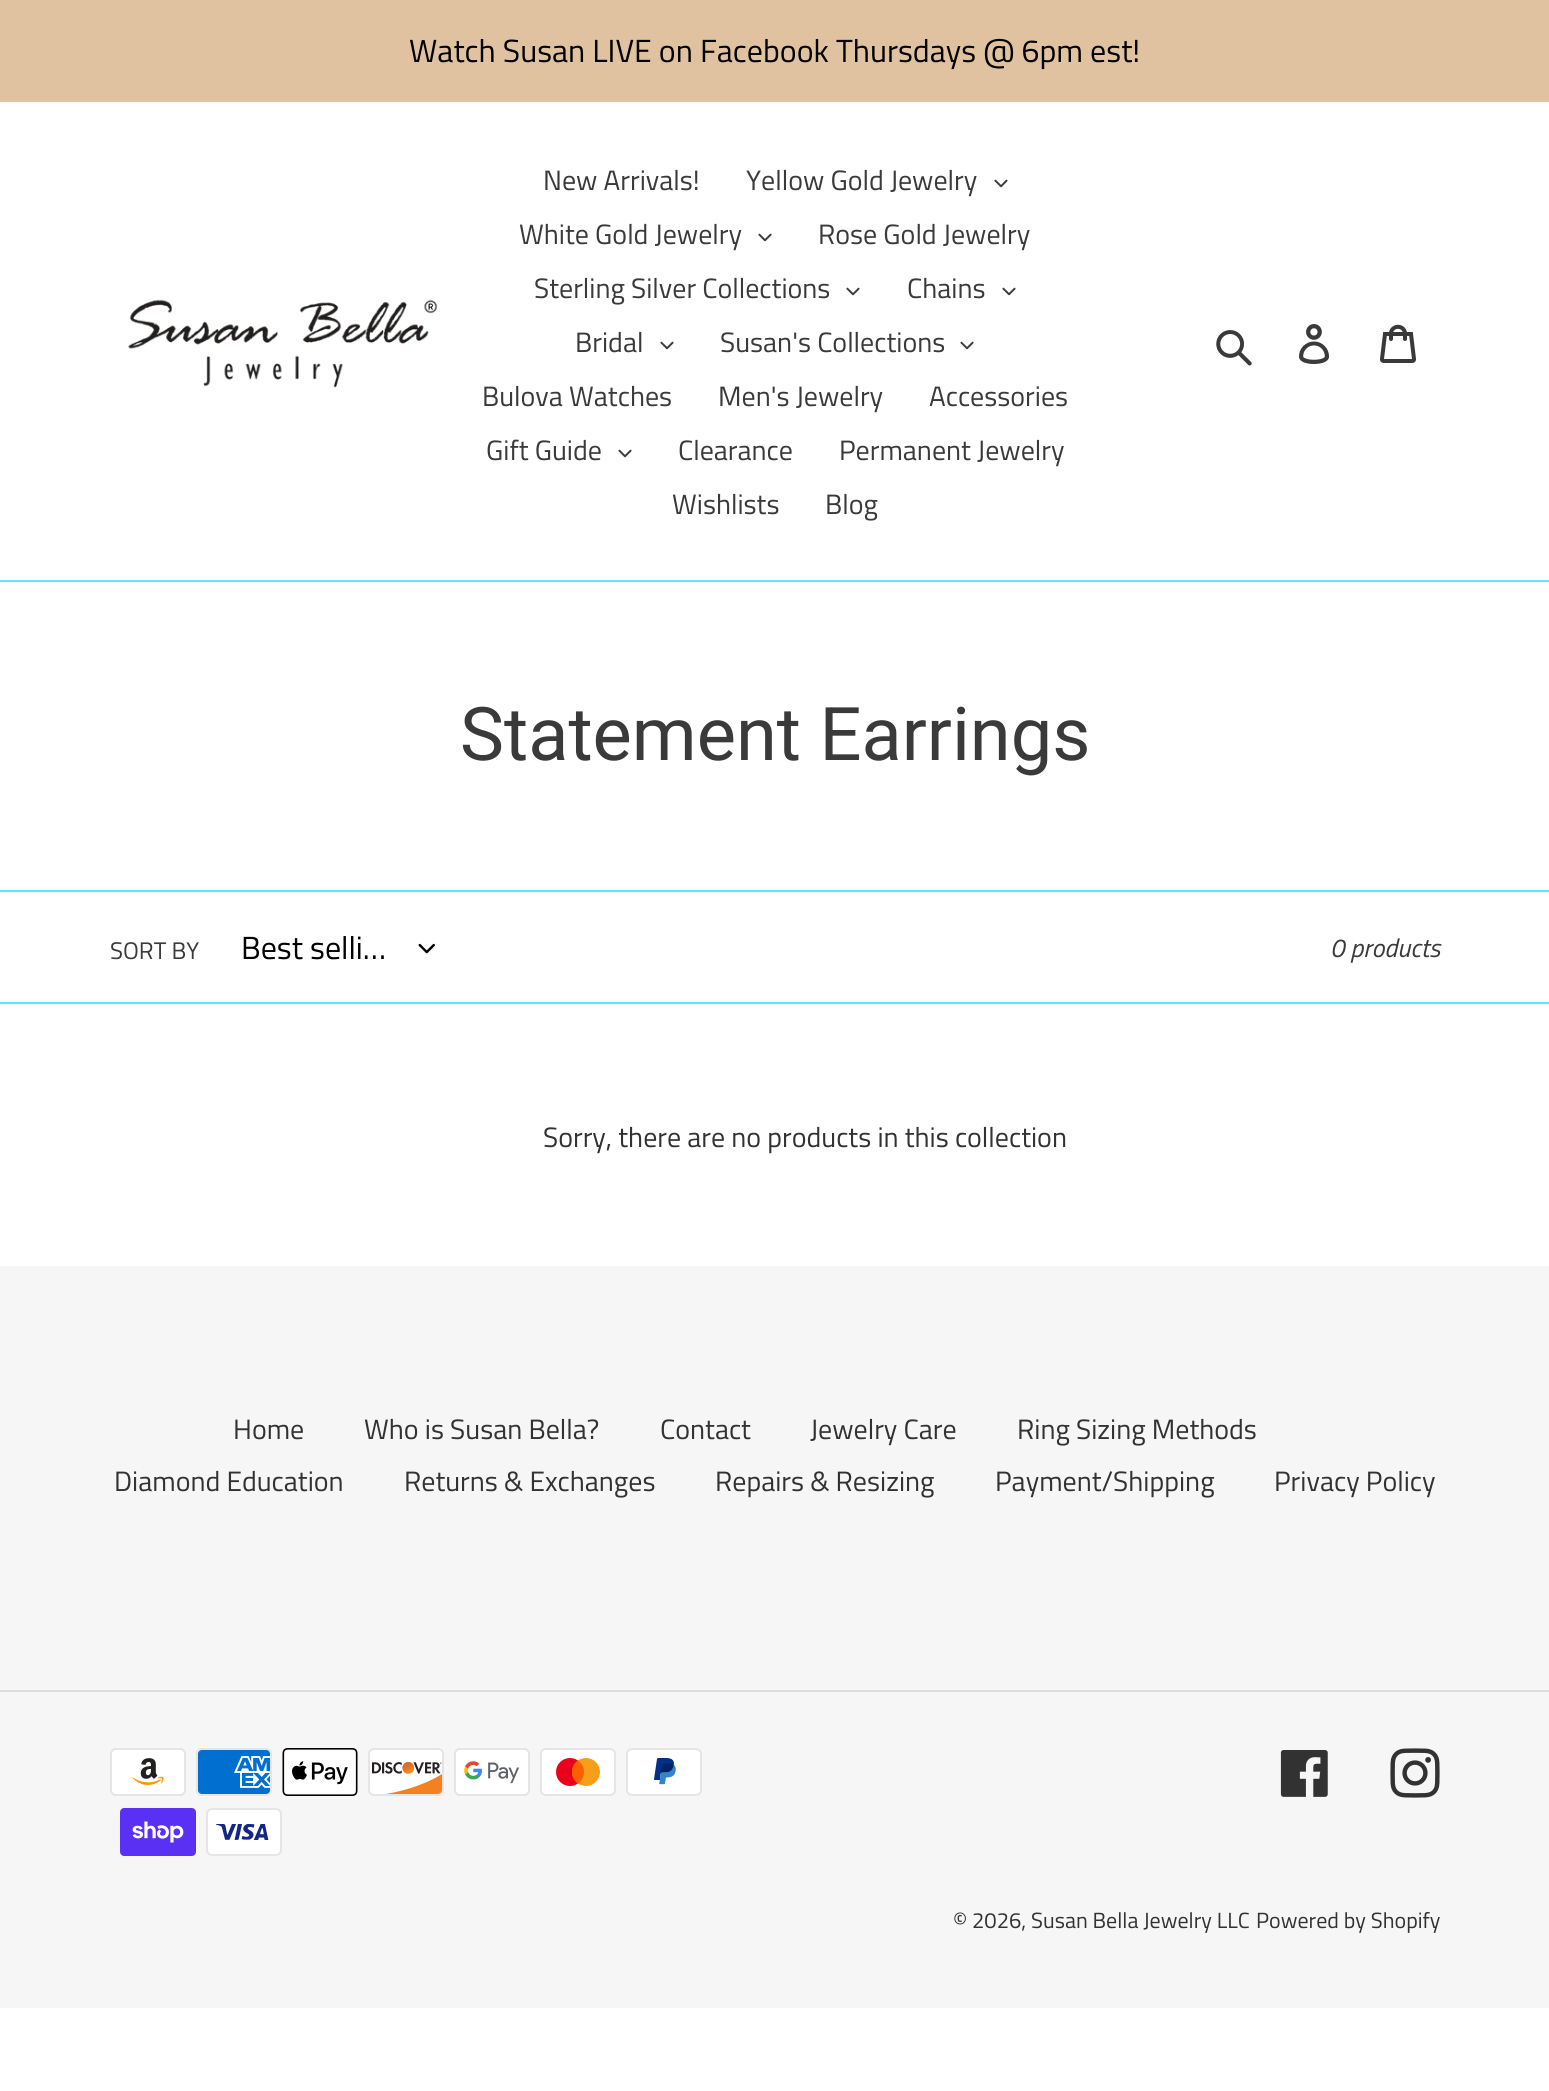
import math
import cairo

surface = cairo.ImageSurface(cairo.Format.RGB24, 1549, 2091)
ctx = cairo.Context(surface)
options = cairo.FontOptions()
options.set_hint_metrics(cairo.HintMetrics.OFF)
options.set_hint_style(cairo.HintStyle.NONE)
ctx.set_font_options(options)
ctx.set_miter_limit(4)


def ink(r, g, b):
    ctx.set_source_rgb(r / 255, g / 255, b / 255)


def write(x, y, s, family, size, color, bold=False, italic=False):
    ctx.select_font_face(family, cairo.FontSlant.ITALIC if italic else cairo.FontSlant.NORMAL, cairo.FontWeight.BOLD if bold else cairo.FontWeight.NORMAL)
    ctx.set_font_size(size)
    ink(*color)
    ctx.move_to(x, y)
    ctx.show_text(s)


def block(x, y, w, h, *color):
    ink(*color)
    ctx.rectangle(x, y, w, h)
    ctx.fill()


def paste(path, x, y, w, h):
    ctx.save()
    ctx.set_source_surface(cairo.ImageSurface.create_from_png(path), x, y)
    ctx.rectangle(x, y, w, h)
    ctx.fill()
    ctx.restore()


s1 = dict(family="Titillium Web", size=32, color=(0, 0, 0))
s2 = dict(family="Titillium Web", size=28, color=(58, 58, 58))
s3 = dict(family="Roboto", size=74, color=(58, 58, 58))
s4 = dict(family="Titillium Web", size=24, color=(58, 58, 58))
s5 = dict(family="Titillium Web", size=26, color=(58, 58, 58), italic=True)
s6 = dict(family="Titillium Web", size=28, color=(51, 50, 50))
s7 = dict(family="Titillium Web", size=22, color=(51, 50, 50))

ink(255, 255, 255)
ctx.paint()
block(0, 0, 1549, 102, 225, 194, 160)
write(409, 62, "Watch Susan LIVE on Facebook Thursdays @ 6pm est!", **s1)
block(0, 580, 1549, 2, 95, 232, 253)
paste("pic1.png", 128, 299, 310, 89)
write(543, 190, "New Arrivals!", **s2)
write(746, 190, "Yellow Gold Jewelry", **s2)
paste("pic2.png", 994, 179, 14, 9)
write(519, 244, "White Gold Jewelry", **s2)
paste("pic2.png", 758, 233, 14, 9)
write(818, 244, "Rose Gold Jewelry", **s2)
write(534, 298, "Sterling Silver Collections", **s2)
paste("pic2.png", 846, 287, 14, 9)
write(907, 298, "Chains", **s2)
paste("pic2.png", 1002, 287, 14, 9)
write(575, 352, "Bridal", **s2)
paste("pic2.png", 660, 341, 14, 9)
write(720, 352, "Susan's Collections", **s2)
paste("pic2.png", 960, 341, 14, 9)
write(482, 406, "Bulova Watches", **s2)
write(718, 406, "Men's Jewelry", **s2)
write(929, 406, "Accessories", **s2)
write(486, 460, "Gift Guide", **s2)
paste("pic2.png", 618, 449, 14, 9)
write(678, 460, "Clearance", **s2)
write(839, 460, "Permanent Jewelry", **s2)
write(672, 514, "Wishlists", **s2)
write(825, 514, "Blog", **s2)
paste("pic3.png", 1216, 330, 36, 36)
paste("pic4.png", 1299, 324, 31, 40)
paste("pic5.png", 1380, 324, 36, 39)
write(460, 760, "Statement Earrings", **s3)
block(0, 890, 1549, 2, 95, 232, 253)
block(0, 1002, 1549, 2, 95, 232, 253)
write(110, 959, "SORT BY", **s4)
write(241, 959, "Best selli…", **s1)
paste("pic6.png", 418, 943, 17, 11)
write(1330, 957, "0 products", **s5)
write(543, 1147, "Sorry, there are no products in this collection", **s6)
block(0, 1266, 1549, 742, 246, 246, 246)
write(233, 1439, "Home", **s6)
write(364, 1439, "Who is Susan Bella?", **s6)
write(660, 1439, "Contact", **s6)
write(810, 1439, "Jewelry Care", **s6)
write(1017, 1439, "Ring Sizing Methods", **s6)
write(114, 1491, "Diamond Education", **s6)
write(404, 1491, "Returns & Exchanges", **s6)
write(715, 1491, "Repairs & Resizing", **s6)
write(995, 1491, "Payment/Shipping", **s6)
write(1274, 1491, "Privacy Policy", **s6)
block(0, 1690, 1549, 2, 221, 221, 221)
paste("pic7.png", 110, 1748, 76, 48)
paste("pic8.png", 196, 1748, 76, 48)
paste("pic9.png", 282, 1748, 76, 48)
paste("pic10.png", 368, 1748, 76, 48)
paste("pic11.png", 454, 1748, 76, 48)
paste("pic12.png", 540, 1748, 76, 48)
paste("pic13.png", 626, 1748, 76, 48)
paste("pic14.png", 120, 1808, 76, 48)
paste("pic15.png", 206, 1808, 76, 48)
paste("pic16.png", 1280, 1750, 48, 47)
paste("pic17.png", 1390, 1748, 50, 50)
write(953, 1928, "© 2026, Susan Bella Jewelry LLC", **s7)
write(1256, 1928, "Powered by Shopify", **s7)
surface.write_to_png("screenshot.png")
